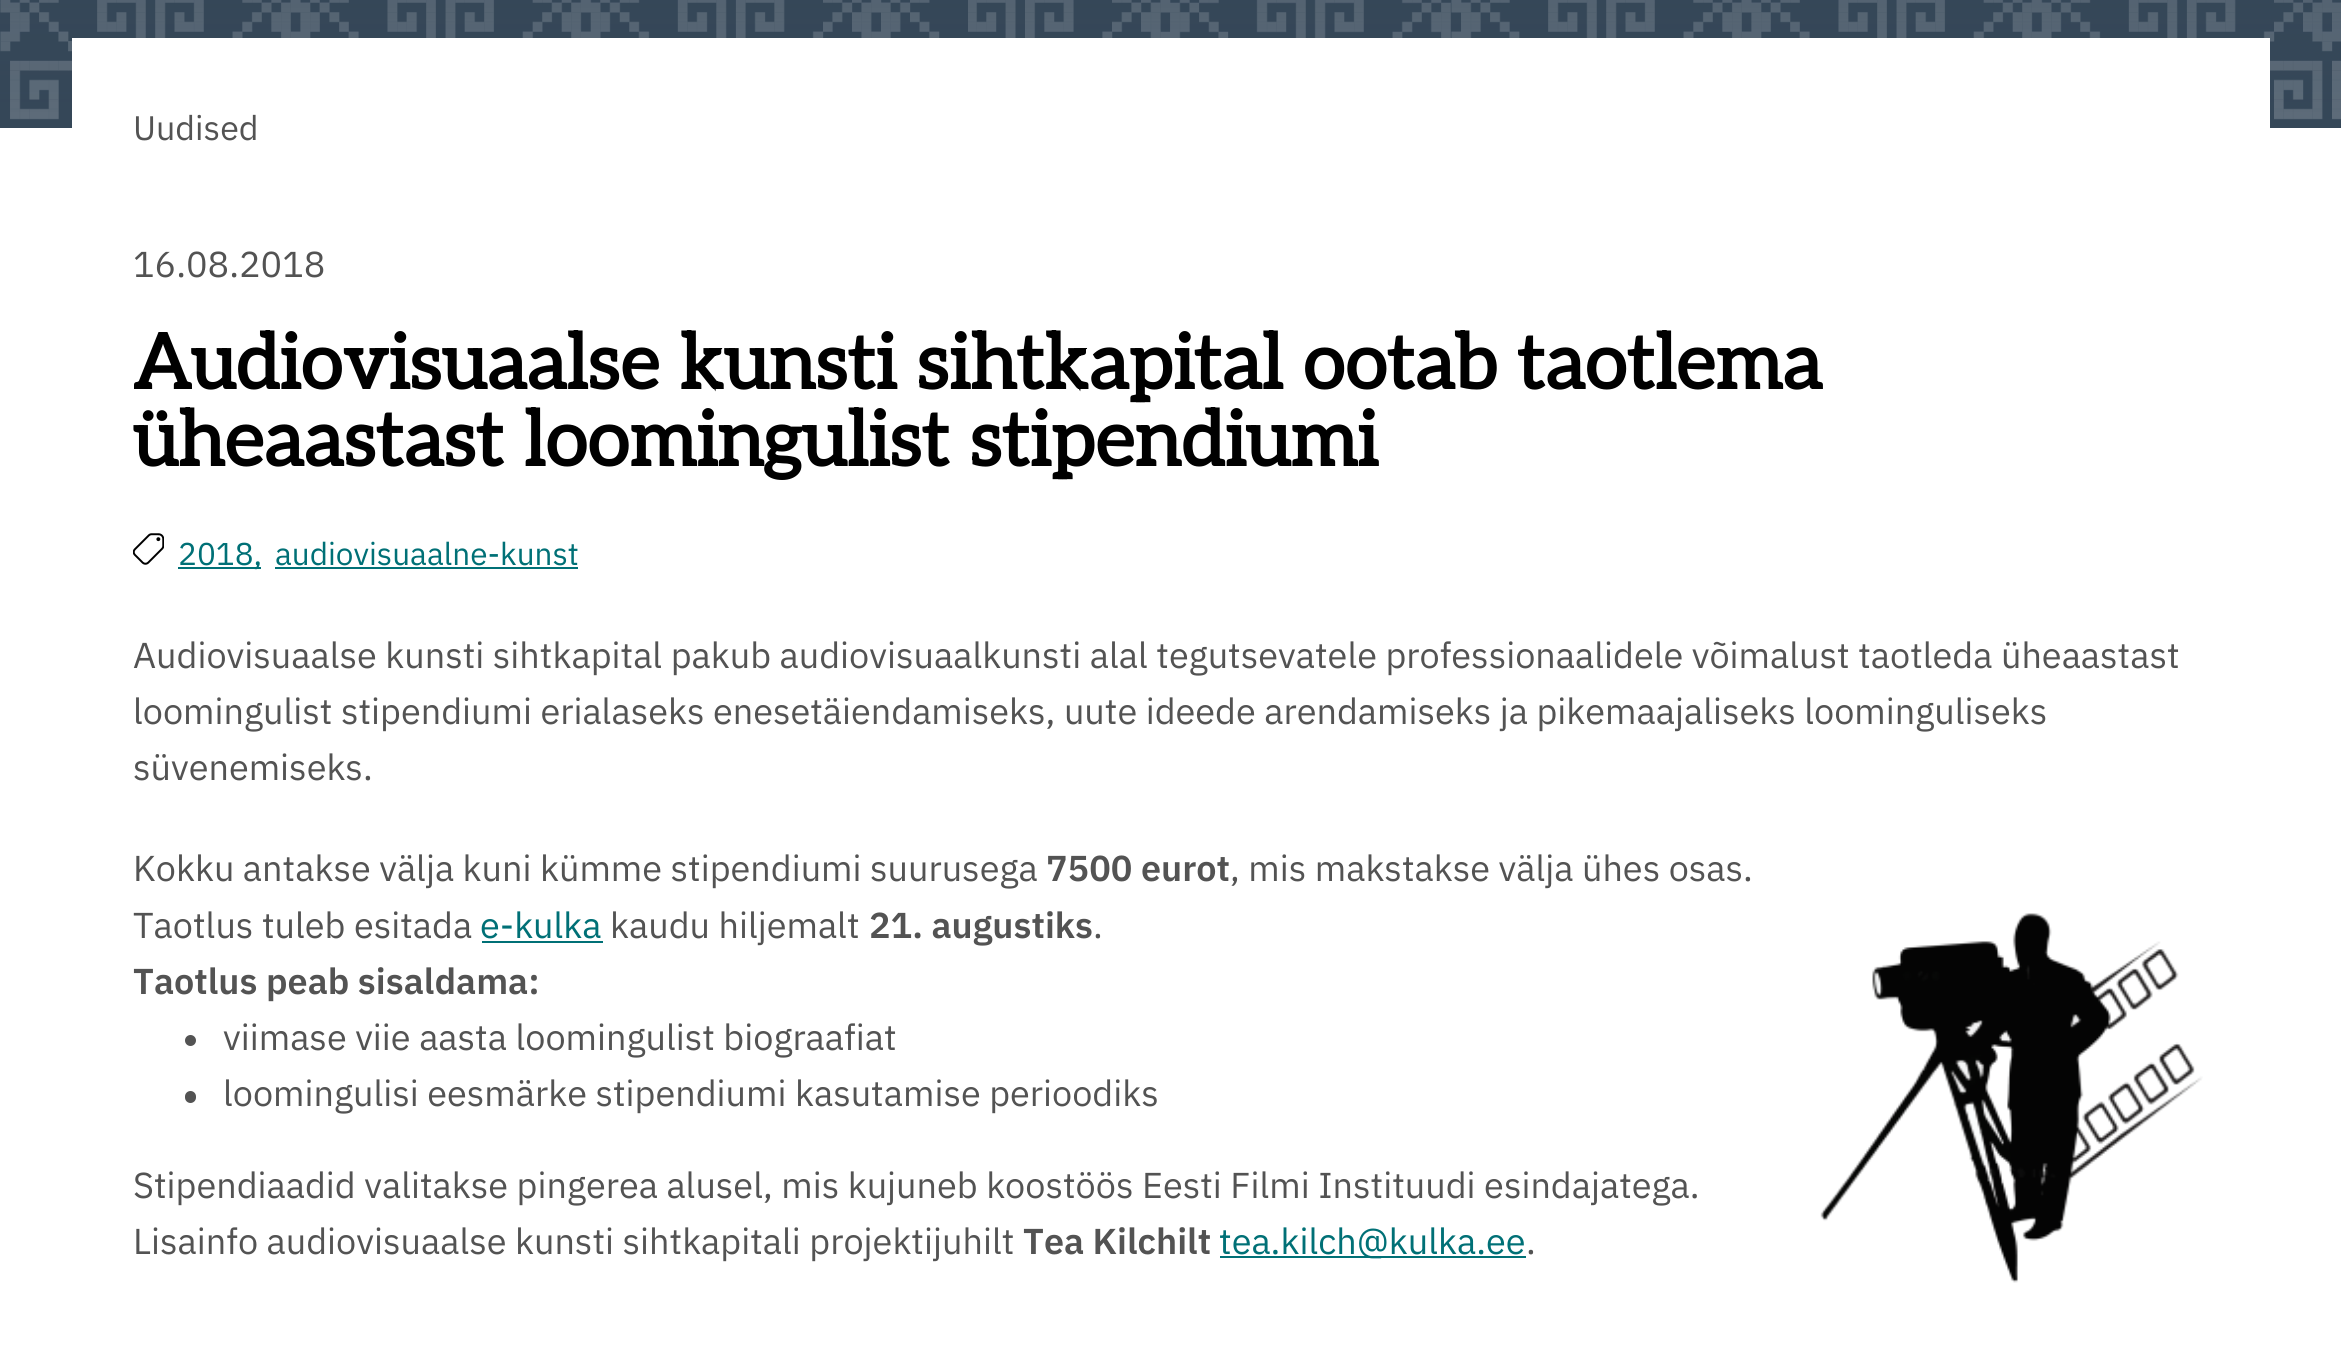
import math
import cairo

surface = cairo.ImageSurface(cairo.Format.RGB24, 2341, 1350)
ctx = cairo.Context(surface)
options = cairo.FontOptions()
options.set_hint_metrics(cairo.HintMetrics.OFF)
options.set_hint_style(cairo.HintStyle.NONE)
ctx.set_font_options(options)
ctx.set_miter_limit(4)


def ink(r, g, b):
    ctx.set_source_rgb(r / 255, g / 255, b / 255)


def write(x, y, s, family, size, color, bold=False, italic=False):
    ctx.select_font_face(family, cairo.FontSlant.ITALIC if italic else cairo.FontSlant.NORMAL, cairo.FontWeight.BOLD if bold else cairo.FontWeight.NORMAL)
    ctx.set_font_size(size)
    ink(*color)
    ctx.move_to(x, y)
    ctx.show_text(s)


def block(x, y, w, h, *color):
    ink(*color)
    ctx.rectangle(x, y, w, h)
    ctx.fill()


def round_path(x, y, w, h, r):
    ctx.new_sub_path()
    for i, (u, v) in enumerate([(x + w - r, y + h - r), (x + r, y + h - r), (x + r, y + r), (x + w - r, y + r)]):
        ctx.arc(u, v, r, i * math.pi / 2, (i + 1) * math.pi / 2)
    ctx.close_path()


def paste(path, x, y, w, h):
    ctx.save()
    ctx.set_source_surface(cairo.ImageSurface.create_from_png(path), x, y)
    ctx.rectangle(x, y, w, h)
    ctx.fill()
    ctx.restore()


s1 = dict(family="IBM Plex Sans", size=34, color=(83, 83, 83))
s2 = dict(family="IBM Plex Sans", size=36, color=(83, 83, 83))
s3 = dict(family="Aleo", size=76.5, color=(0, 0, 0), bold=True)
s4 = dict(family="IBM Plex Sans", size=31.5, color=(0, 112, 118))
s5 = dict(family="IBM Plex Sans SemiBold", size=36, color=(83, 83, 83))
s6 = dict(family="IBM Plex Sans", size=36, color=(0, 112, 118))

ink(255, 255, 255)
ctx.paint()
block(0, 0, 2341, 128, 53, 71, 88)
paste("pic1.png", 0, 0, 2341, 120)
gradient = cairo.LinearGradient(1171, -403, 1171, 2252)
gradient.add_color_stop_rgba(0, 0.208, 0.278, 0.345, 1)
gradient.add_color_stop_rgba(1, 0.208, 0.278, 0.345, 0)
ctx.set_source(gradient)
ctx.rectangle(0, 0, 2341, 120)
ctx.fill()
block(72, 38, 2198, 90, 255, 255, 255)
write(133, 140, "Uudised", **s1)
write(133, 277, "16.08.2018", **s2)
write(133, 389, "Audiovisuaalse kunsti sihtkapital ootab taotlema", **s3)
write(133, 466, "üheaastast loomingulist stipendiumi", **s3)
paste("pic2.png", 133, 533, 31, 32)
block(178, 567, 83, 2, 0, 112, 118)
write(178, 565, "2018,", **s4)
write(275, 565, "audiovisuaalne-kunst", **s4)
block(275, 567, 303, 2, 0, 112, 118)
write(133, 668, "Audiovisuaalse kunsti sihtkapital pakub audiovisuaalkunsti alal tegutsevatele professionaalidele võimalust taotleda üheaastast", **s2)
write(133, 724, "loomingulist stipendiumi erialaseks enesetäiendamiseks, uute ideede arendamiseks ja pikemaajaliseks loominguliseks", **s2)
write(133, 780, "süvenemiseks.", **s2)
write(133, 881, "Kokku antakse välja kuni kümme stipendiumi suurusega", **s2)
write(1046, 881, "7500 eurot", **s5)
write(1230, 881, ", mis makstakse välja ühes osas.", **s2)
write(133, 938, "Taotlus tuleb esitada", **s2)
write(480, 938, "e-kulka", **s6)
block(482, 941, 121, 2, 0, 112, 118)
write(610, 938, "kaudu hiljemalt", **s2)
write(869, 938, "21. augustiks", **s5)
write(1093, 938, ".", **s2)
paste("pic3.png", 1820, 913, 383, 370)
write(133, 994, "Taotlus peab sisaldama:", **s5)
ctx.new_path()
ctx.arc(190.5, 1040.5, 5.5, 0, 2 * math.pi)
ctx.fill()
write(223, 1050, "viimase viie aasta loomingulist biograafiat", **s2)
round_path(185, 1091, 11, 12, 5.5)
ctx.fill()
write(223, 1106, "loomingulisi eesmärke stipendiumi kasutamise perioodiks", **s2)
write(133, 1198, "Stipendiaadid valitakse pingerea alusel, mis kujuneb koostöös Eesti Filmi Instituudi esindajatega.", **s2)
write(133, 1254, "Lisainfo audiovisuaalse kunsti sihtkapitali projektijuhilt", **s2)
write(1023, 1254, "Tea Kilchilt", **s5)
block(1220, 1256, 306, 2, 0, 112, 118)
write(1219, 1254, "tea.kilch@kulka.ee", **s6)
write(1526, 1254, ".", **s2)
surface.write_to_png("screenshot.png")
